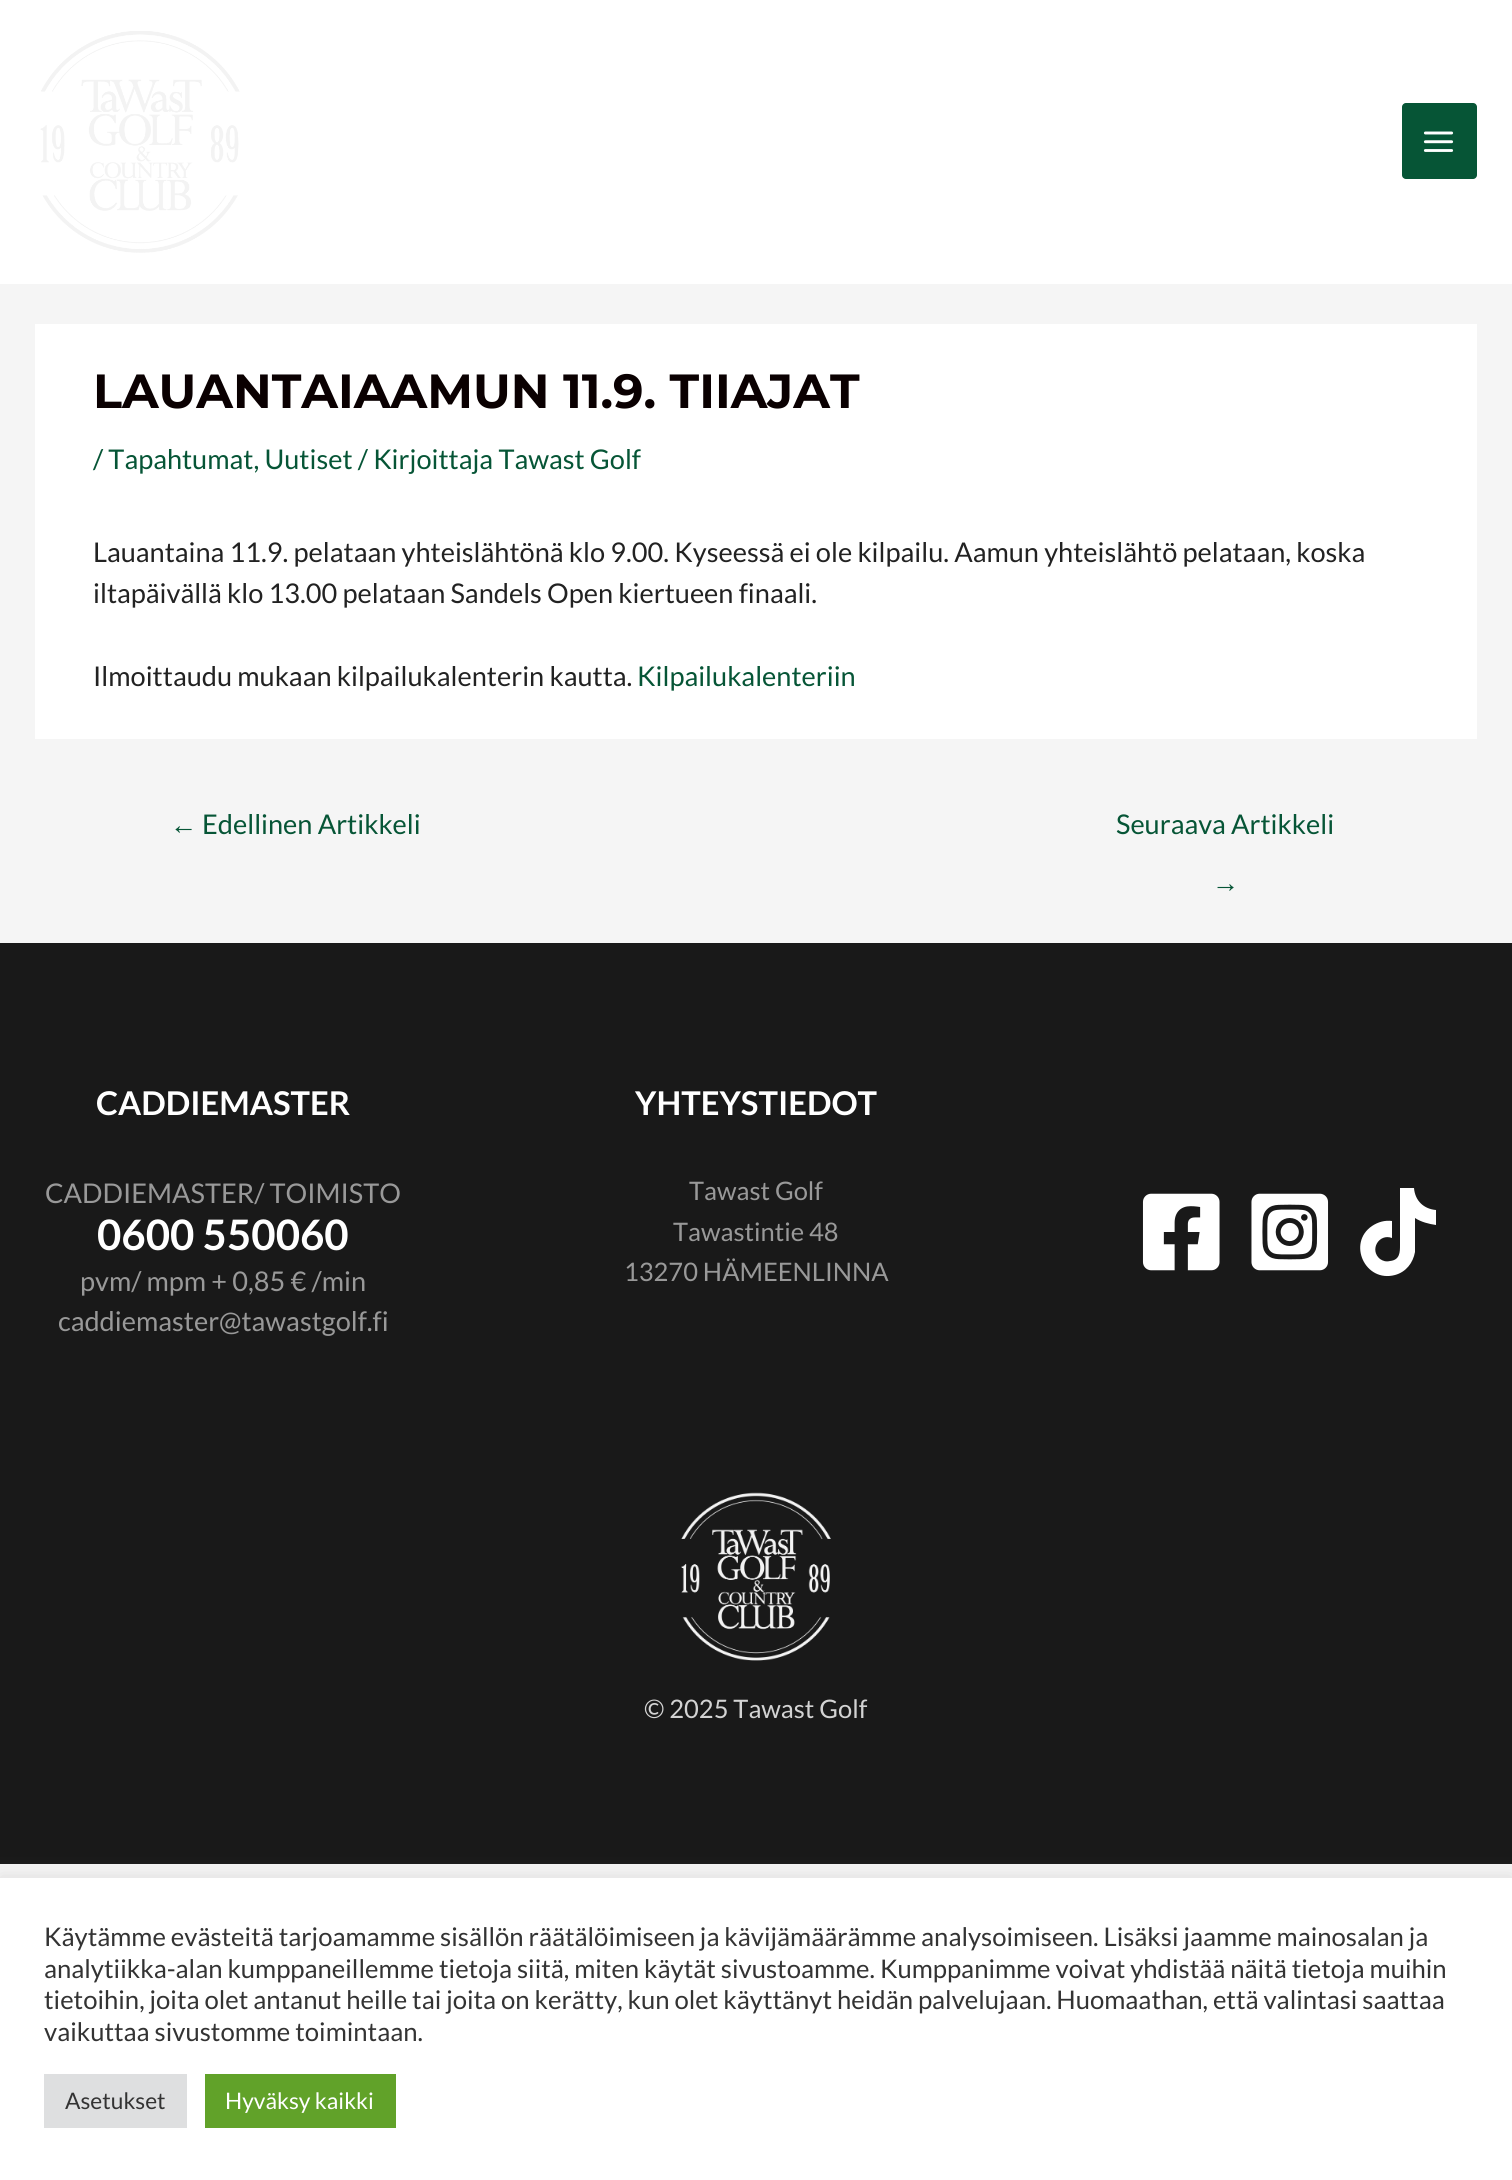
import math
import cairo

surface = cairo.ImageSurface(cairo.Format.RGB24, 1512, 2180)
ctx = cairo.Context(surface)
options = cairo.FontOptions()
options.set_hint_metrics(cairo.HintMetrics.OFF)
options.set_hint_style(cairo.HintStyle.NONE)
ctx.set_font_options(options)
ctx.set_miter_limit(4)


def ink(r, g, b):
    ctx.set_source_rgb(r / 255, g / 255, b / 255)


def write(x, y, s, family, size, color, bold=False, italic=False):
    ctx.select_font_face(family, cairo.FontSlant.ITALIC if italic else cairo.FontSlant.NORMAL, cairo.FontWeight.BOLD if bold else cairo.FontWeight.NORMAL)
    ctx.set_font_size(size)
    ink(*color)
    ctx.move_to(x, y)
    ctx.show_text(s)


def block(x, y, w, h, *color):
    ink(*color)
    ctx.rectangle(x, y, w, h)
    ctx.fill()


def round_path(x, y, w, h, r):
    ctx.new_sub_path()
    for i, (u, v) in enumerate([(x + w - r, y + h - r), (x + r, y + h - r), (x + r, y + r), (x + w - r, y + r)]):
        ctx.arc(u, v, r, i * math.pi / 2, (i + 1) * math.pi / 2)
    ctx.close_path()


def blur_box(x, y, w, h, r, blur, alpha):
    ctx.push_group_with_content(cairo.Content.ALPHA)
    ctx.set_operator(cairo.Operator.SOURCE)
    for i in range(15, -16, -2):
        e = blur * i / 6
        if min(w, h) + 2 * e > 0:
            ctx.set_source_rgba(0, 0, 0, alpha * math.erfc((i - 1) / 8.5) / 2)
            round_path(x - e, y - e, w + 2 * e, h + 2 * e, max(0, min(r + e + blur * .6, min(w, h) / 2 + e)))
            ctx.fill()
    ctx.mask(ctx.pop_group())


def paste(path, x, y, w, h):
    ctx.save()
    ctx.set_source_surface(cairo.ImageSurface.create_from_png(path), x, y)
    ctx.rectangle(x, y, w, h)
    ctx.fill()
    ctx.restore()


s1 = dict(family="Montserrat Thin", size=47.9, color=(10, 0, 1))
s2 = dict(family="Lato", size=27.15, color=(6, 85, 54))
s3 = dict(family="Lato", size=27.15, color=(34, 34, 34))
s4 = dict(family="Liberation Sans", size=27.15, color=(6, 85, 54))
s5 = dict(family="Lato", size=32.75, color=(255, 255, 255), bold=True)
s6 = dict(family="Lato", size=27.15, color=(153, 153, 153))
s7 = dict(family="Lato", size=42, color=(255, 255, 255), bold=True)
s8 = dict(family="Lato", size=25.5, color=(153, 153, 153))
s9 = dict(family="Lato", size=25.5, color=(211, 211, 211))
s10 = dict(family="Lato", size=25.67, color=(51, 51, 51))
s11 = dict(family="Lato", size=22.75, color=(51, 51, 51))
s12 = dict(family="Lato", size=22.75, color=(255, 255, 255))

ink(245, 245, 245)
ctx.paint()
block(0, 0, 1512, 284, 255, 255, 255)
paste("pic1.png", 40, 31, 200, 222)
ink(6, 85, 54)
round_path(1402, 103, 75, 76, 4)
ctx.fill()
paste("pic2.png", 1423, 131, 31, 21)
block(35, 324, 1442, 415, 255, 255, 255)
write(93, 408, "LAUANTAIAAMUN 11.9. TIIAJAT", **s1)
write(93, 469, "/ Tapahtumat, Uutiset / Kirjoittaja Tawast Golf", **s2)
write(93, 562, "Lauantaina 11.9. pelataan yhteislähtönä klo 9.00. Kyseessä ei ole kilpailu. Aamun yhteislähtö pelataan, koska", **s3)
write(93, 603, "iltapäivällä klo 13.00 pelataan Sandels Open kiertueen finaali.", **s3)
write(93, 686, "Ilmoittaudu mukaan kilpailukalenterin kautta.", **s3)
write(637, 686, "Kilpailukalenteriin", **s2)
write(170, 834, "←", **s4)
write(202, 834, "Edellinen Artikkeli", **s2)
write(1116, 834, "Seuraava Artikkeli", **s2)
write(1212, 892, "→", **s4)
block(0, 943, 1512, 921, 25, 25, 25)
write(96, 1115, "CADDIEMASTER", **s5)
write(45, 1203, "CADDIEMASTER/ TOIMISTO", **s6)
write(97, 1250, "0600 550060", **s7)
write(80, 1291, "pvm/ mpm + 0,85 € /min", **s6)
write(58, 1331, "caddiemaster@tawastgolf.fi", **s6)
write(635, 1115, "YHTEYSTIEDOT", **s5)
write(689, 1200, "Tawast Golf", **s8)
write(673, 1241, "Tawastintie 48", **s8)
write(624, 1281, "13270 HÄMEENLINNA", **s8)
paste("pic3.png", 1142, 1193, 78, 78)
paste("pic4.png", 1251, 1193, 78, 78)
ink(255, 255, 255)
ctx.new_path()
ctx.move_to(1400, 1188)
ctx.line_to(1414, 1188)
ctx.curve_to(1415, 1201, 1424, 1209, 1436, 1210)
ctx.line_to(1436, 1225)
ctx.curve_to(1429, 1224, 1421, 1222, 1415, 1218)
ctx.line_to(1415, 1252)
ctx.curve_to(1413, 1263, 1406, 1272, 1395, 1275)
ctx.curve_to(1365, 1283, 1347, 1243, 1372, 1226)
ctx.curve_to(1378, 1222, 1385, 1220, 1392, 1221)
ctx.line_to(1392, 1238)
ctx.curve_to(1379, 1233, 1369, 1250, 1380, 1259)
ctx.curve_to(1383, 1261, 1386, 1262, 1390, 1261)
ctx.curve_to(1400, 1260, 1400, 1252, 1400, 1245)
ctx.close_path()
ctx.fill()
paste("pic5.png", 681, 1492, 150, 169)
write(644, 1718, "© 2025 Tawast Golf", **s9)
ink(172, 171, 171)
blur_box(0, 1876, 1512, 303, 0, 9, 0.3)
block(0, 1878, 1512, 302, 255, 255, 255)
write(44, 1946, "Käytämme evästeitä tarjoamamme sisällön räätälöimiseen ja kävijämäärämme analysoimiseen. Lisäksi jaamme mainosalan ja", **s10)
write(44, 1978, "analytiikka-alan kumppaneillemme tietoja siitä, miten käytät sivustoamme. Kumppanimme voivat yhdistää näitä tietoja muihin", **s10)
write(44, 2009, "tietoihin, joita olet antanut heille tai joita on kerätty, kun olet käyttänyt heidän palvelujaan. Huomaathan, että valintasi saattaa", **s10)
write(44, 2041, "vaikuttaa sivustomme toimintaan.", **s10)
block(44, 2074, 143, 54, 222, 223, 224)
write(65, 2109, "Asetukset", **s11)
block(205, 2074, 191, 54, 97, 162, 41)
write(225, 2109, "Hyväksy kaikki", **s12)
surface.write_to_png("screenshot.png")
